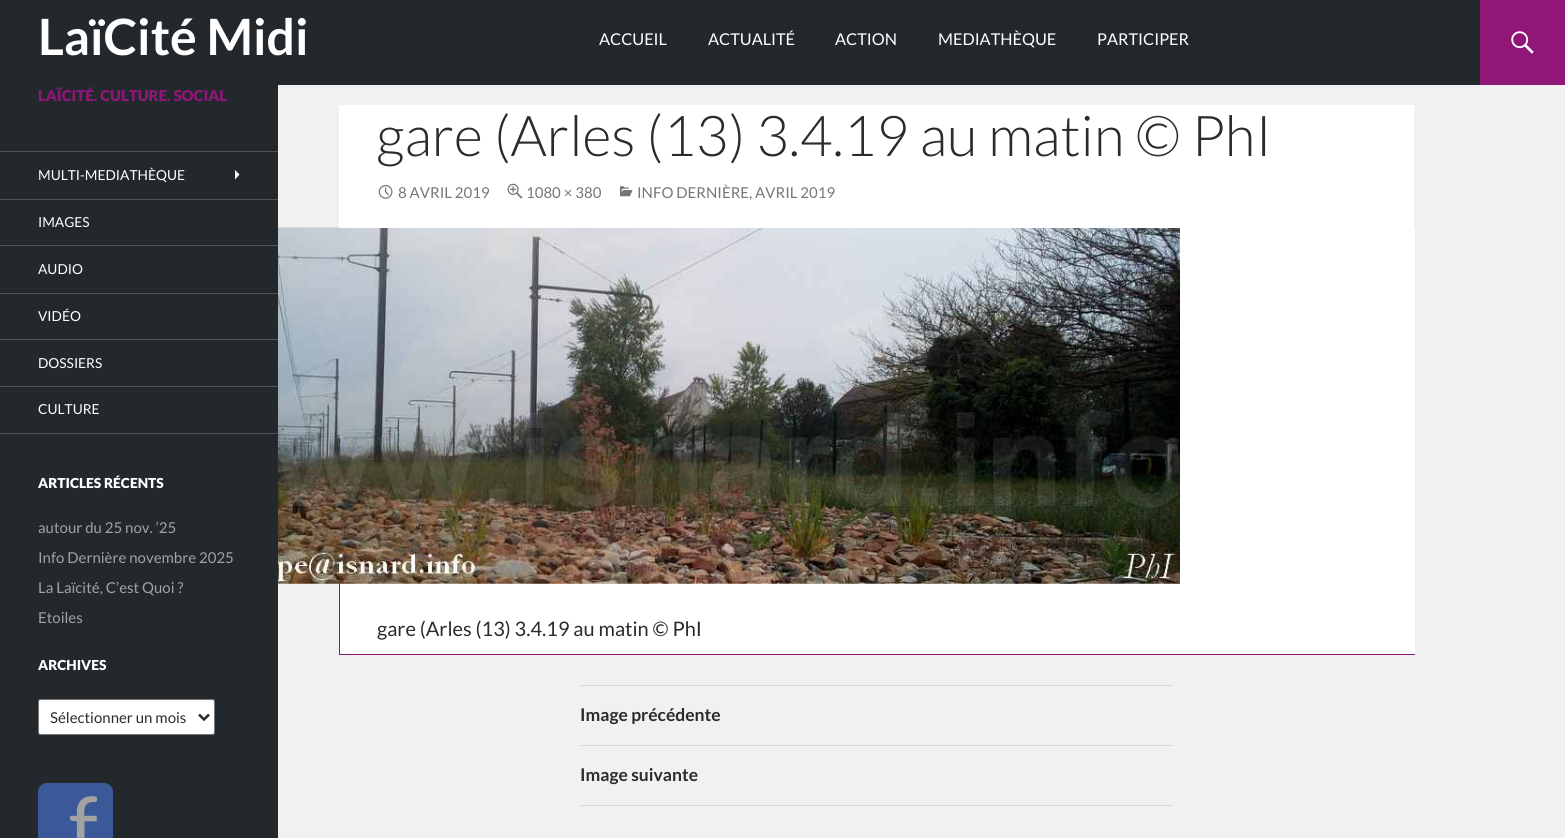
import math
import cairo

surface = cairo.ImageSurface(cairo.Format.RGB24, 1565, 838)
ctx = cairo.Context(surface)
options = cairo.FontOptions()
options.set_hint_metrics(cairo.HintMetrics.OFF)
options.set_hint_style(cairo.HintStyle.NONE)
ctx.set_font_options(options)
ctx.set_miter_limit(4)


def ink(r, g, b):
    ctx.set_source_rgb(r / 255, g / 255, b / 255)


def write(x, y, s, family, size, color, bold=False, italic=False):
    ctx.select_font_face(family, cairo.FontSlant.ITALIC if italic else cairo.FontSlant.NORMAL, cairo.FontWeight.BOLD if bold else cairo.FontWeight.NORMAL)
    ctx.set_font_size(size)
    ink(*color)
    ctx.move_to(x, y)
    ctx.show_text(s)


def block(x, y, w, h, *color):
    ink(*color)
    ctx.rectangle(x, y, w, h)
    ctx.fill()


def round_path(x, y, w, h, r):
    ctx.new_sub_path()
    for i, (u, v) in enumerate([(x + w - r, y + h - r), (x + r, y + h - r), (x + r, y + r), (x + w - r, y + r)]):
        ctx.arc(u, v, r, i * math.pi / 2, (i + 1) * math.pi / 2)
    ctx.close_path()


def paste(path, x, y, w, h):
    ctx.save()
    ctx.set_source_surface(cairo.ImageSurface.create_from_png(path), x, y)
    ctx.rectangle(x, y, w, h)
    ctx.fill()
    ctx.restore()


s1 = dict(family="Lato", size=50, color=(255, 255, 255), bold=True)
s2 = dict(family="Lato", size=16.25, color=(255, 255, 255))
s3 = dict(family="Lato Black", size=15, color=(144, 22, 120))
s4 = dict(family="Lato", size=13.75, color=(255, 255, 255))
s5 = dict(family="Lato Black", size=13.75, color=(255, 255, 255))
s6 = dict(family="Lato", size=15, color=(162, 162, 162))
s7 = dict(family="Lato", size=15, color=(43, 43, 43))
s8 = dict(family="Lato", size=85, color=(162, 162, 162))
s9 = dict(family="Lato Light", size=56.25, color=(43, 43, 43))
s10 = dict(family="Lato", size=15, color=(118, 118, 118))
s11 = dict(family="Lato", size=20, color=(43, 43, 43))
s12 = dict(family="Lato", size=17.5, color=(43, 43, 43), bold=True)

ink(241, 241, 241)
ctx.paint()
block(0, 0, 1480, 85, 35, 40, 45)
write(38, 55, "LaïCité Midi", **s1)
write(599, 45, "ACCUEIL", **s2)
write(708, 45, "ACTUALITÉ", **s2)
write(835, 45, "ACTION", **s2)
write(938, 45, "MEDIATHÈQUE", **s2)
write(1097, 45, "PARTICIPER", **s2)
block(1480, 0, 85, 85, 144, 22, 120)
paste("pic1.png", 1511, 31, 23, 23)
block(0, 85, 278, 753, 35, 40, 45)
write(38, 101, "LAÏCITÉ. CULTURE. SOCIAL", **s3)
block(0, 433, 278, 1, 79, 83, 87)
block(0, 151, 278, 1, 79, 83, 87)
write(38, 180, "MULTI-MEDIATHÈQUE", **s4)
ctx.new_path()
ctx.move_to(235, 179.5)
ctx.line_to(235, 170)
ctx.line_to(239.5, 174.5)
ctx.close_path()
ctx.fill()
block(0, 199, 278, 1, 79, 83, 87)
write(38, 227, "IMAGES", **s4)
block(0, 245, 278, 1, 79, 83, 87)
write(38, 274, "AUDIO", **s4)
block(0, 293, 278, 1, 79, 83, 87)
write(38, 321, "VIDÉO", **s4)
block(0, 339, 278, 1, 79, 83, 87)
write(38, 368, "DOSSIERS", **s4)
block(0, 386, 278, 1, 79, 83, 87)
write(38, 414, "CULTURE", **s4)
write(38, 488, "ARTICLES RÉCENTS", **s5)
write(38, 533, "autour du 25 nov. ’25", **s6)
write(38, 563, "Info Dernière novembre 2025", **s6)
write(38, 593, "La Laïcité, C’est Quoi ?", **s6)
write(38, 623, "Etoiles", **s6)
write(38, 670, "ARCHIVES", **s5)
round_path(38.5, 699.5, 176, 35, 2)
ctx.fill_preserve()
ink(118, 118, 118)
ctx.set_line_width(1)
ctx.stroke()
ctx.new_path()
ctx.move_to(199, 714.5)
ctx.line_to(204, 719.5)
ctx.line_to(209, 714.5)
ink(43, 43, 43)
ctx.set_line_width(2.5)
ctx.stroke()
write(50, 723, "Sélectionner un mois", **s7)
ink(59, 89, 152)
round_path(38, 783, 75, 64, 9)
ctx.fill()
write(69, 858, "f", **s8)
block(340, 228, 1075, 426, 255, 255, 255)
block(339, 654, 1076, 1, 144, 22, 120)
block(339, 583, 1, 72, 144, 22, 120)
paste("pic5.png", 278, 227, 902, 357)
block(339, 105, 1075, 123, 255, 255, 255)
write(376, 156, "gare (Arles (13) 3.4.19 au matin © PhI", **s9)
paste("pic2.png", 378, 185, 15, 14)
write(398, 198, "8 AVRIL 2019", **s10)
paste("pic3.png", 507, 183, 16, 16)
write(526, 198, "1080 × 380", **s10)
paste("pic4.png", 620, 186, 13, 11)
write(637, 198, "INFO DERNIÈRE, AVRIL 2019", **s10)
write(377, 636, "gare (Arles (13) 3.4.19 au matin © PhI", **s11)
block(580, 685, 593, 1, 217, 217, 217)
block(580, 745, 593, 1, 217, 217, 217)
write(580, 721, "Image précédente", **s12)
block(580, 805, 593, 1, 217, 217, 217)
write(580, 781, "Image suivante", **s12)
surface.write_to_png("screenshot.png")
